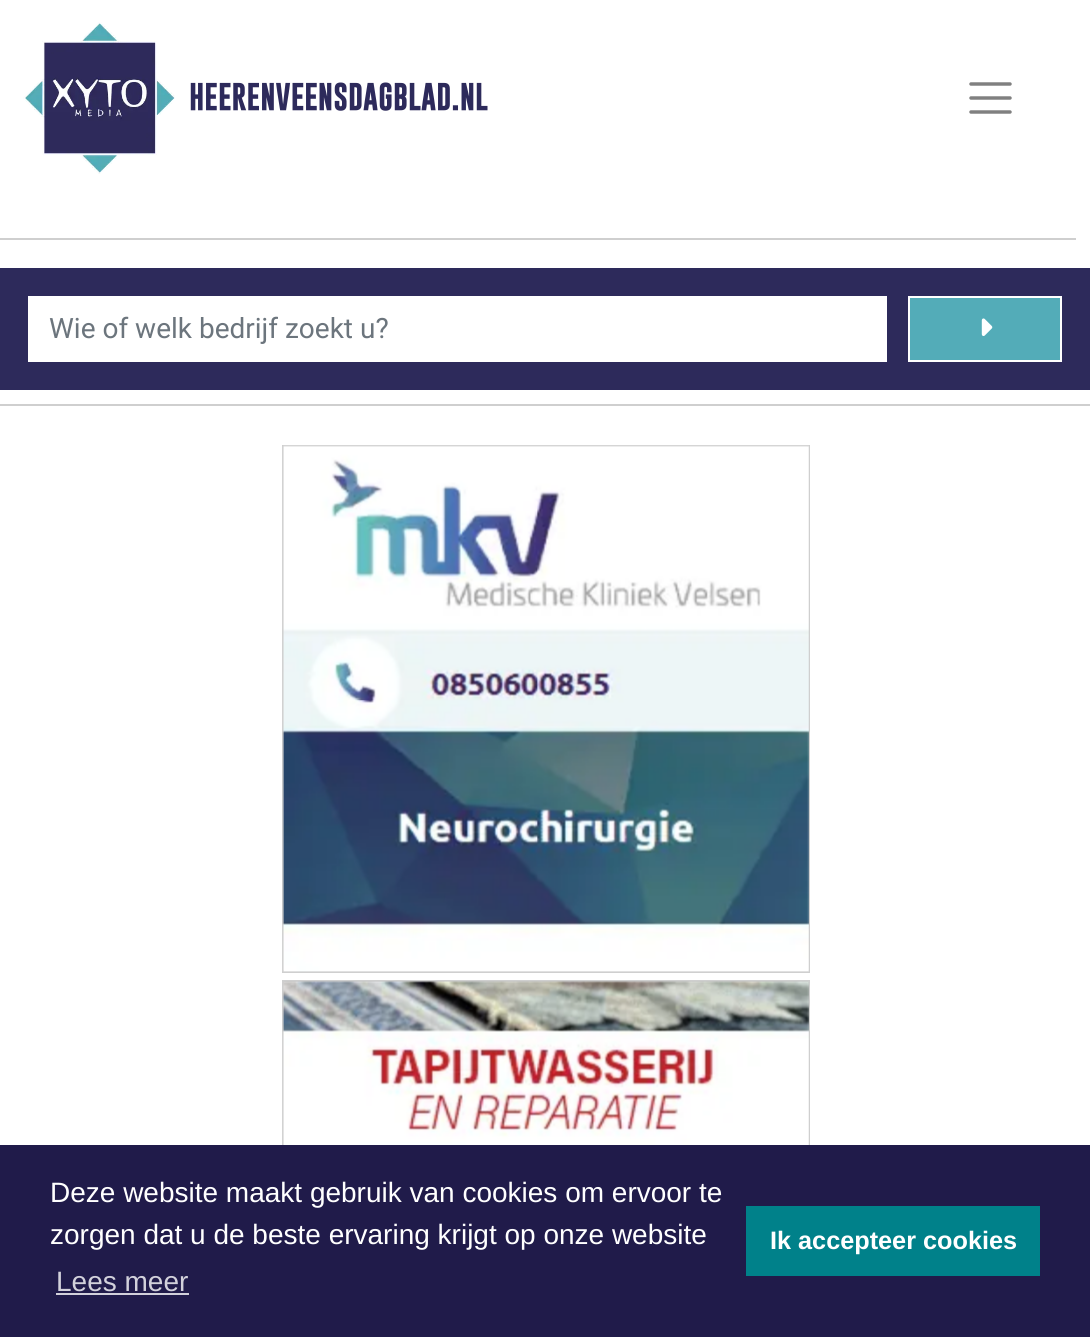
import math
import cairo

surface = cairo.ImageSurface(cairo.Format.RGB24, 1090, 1337)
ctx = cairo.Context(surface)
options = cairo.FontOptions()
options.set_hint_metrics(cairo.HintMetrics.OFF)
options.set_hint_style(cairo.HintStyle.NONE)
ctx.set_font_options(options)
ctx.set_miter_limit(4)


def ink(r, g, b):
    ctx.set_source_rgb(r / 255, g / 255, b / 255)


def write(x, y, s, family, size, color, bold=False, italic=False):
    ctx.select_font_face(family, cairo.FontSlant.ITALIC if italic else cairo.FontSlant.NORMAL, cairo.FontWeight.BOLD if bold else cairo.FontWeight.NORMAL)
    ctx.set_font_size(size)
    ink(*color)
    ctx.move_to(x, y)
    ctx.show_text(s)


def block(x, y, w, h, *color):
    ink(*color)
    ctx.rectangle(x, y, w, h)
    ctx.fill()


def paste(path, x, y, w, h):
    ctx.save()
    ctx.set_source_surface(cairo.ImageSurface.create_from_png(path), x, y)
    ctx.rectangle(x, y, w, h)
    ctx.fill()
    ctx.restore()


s1 = dict(family="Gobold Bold", size=28, color=(45, 42, 91), bold=True)
s2 = dict(family="Roboto", size=28, color=(108, 117, 125))
s3 = dict(family="Liberation Sans", size=28, color=(255, 255, 255))
s4 = dict(family="Liberation Sans", size=28, color=(210, 209, 219))
s5 = dict(family="Liberation Sans", size=25.25, color=(255, 255, 255), bold=True)

ink(255, 255, 255)
ctx.paint()
paste("pic1.png", 23, 22, 152, 152)
write(189, 110, "HEERENVEENSDAGBLAD.NL", **s1)
ctx.new_path()
ctx.move_to(971, 84)
ctx.line_to(1010, 84)
ctx.move_to(971, 98)
ctx.line_to(1010, 98)
ctx.move_to(971, 112)
ctx.line_to(1010, 112)
ink(128, 128, 128)
ctx.set_line_width(3.5)
ctx.set_line_cap(cairo.LineCap.ROUND)
ctx.stroke()
block(0, 238, 1076, 2, 207, 207, 207)
block(0, 268, 1090, 122, 45, 42, 91)
block(28, 296, 859, 66, 255, 255, 255)
write(49, 338, "Wie of welk bedrijf zoekt u?", **s2)
ink(83, 172, 184)
ctx.rectangle(909, 297, 152, 64)
ctx.fill_preserve()
ink(255, 255, 255)
ctx.set_line_width(2)
ctx.set_line_cap(cairo.LineCap.BUTT)
ctx.stroke()
paste("pic2.png", 981, 318, 12, 18)
block(0, 404, 1090, 2, 207, 207, 207)
ctx.rectangle(283, 446, 526, 526)
ctx.stroke()
paste("pic3.png", 282, 445, 527, 527)
ctx.rectangle(283, 981, 526, 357)
ctx.stroke()
paste("pic4.png", 282, 981, 527, 164)
block(0, 1145, 1090, 192, 32, 27, 74)
write(50, 1202, "Deze website maakt gebruik van cookies om ervoor te", **s3)
write(50, 1244, "zorgen dat u de beste ervaring krijgt op onze website", **s3)
write(56, 1291, "Lees meer", **s4)
block(56, 1293, 133, 2, 210, 209, 219)
block(746, 1206, 294, 70, 0, 129, 138)
write(770, 1249, "Ik accepteer cookies", **s5)
surface.write_to_png("screenshot.png")
